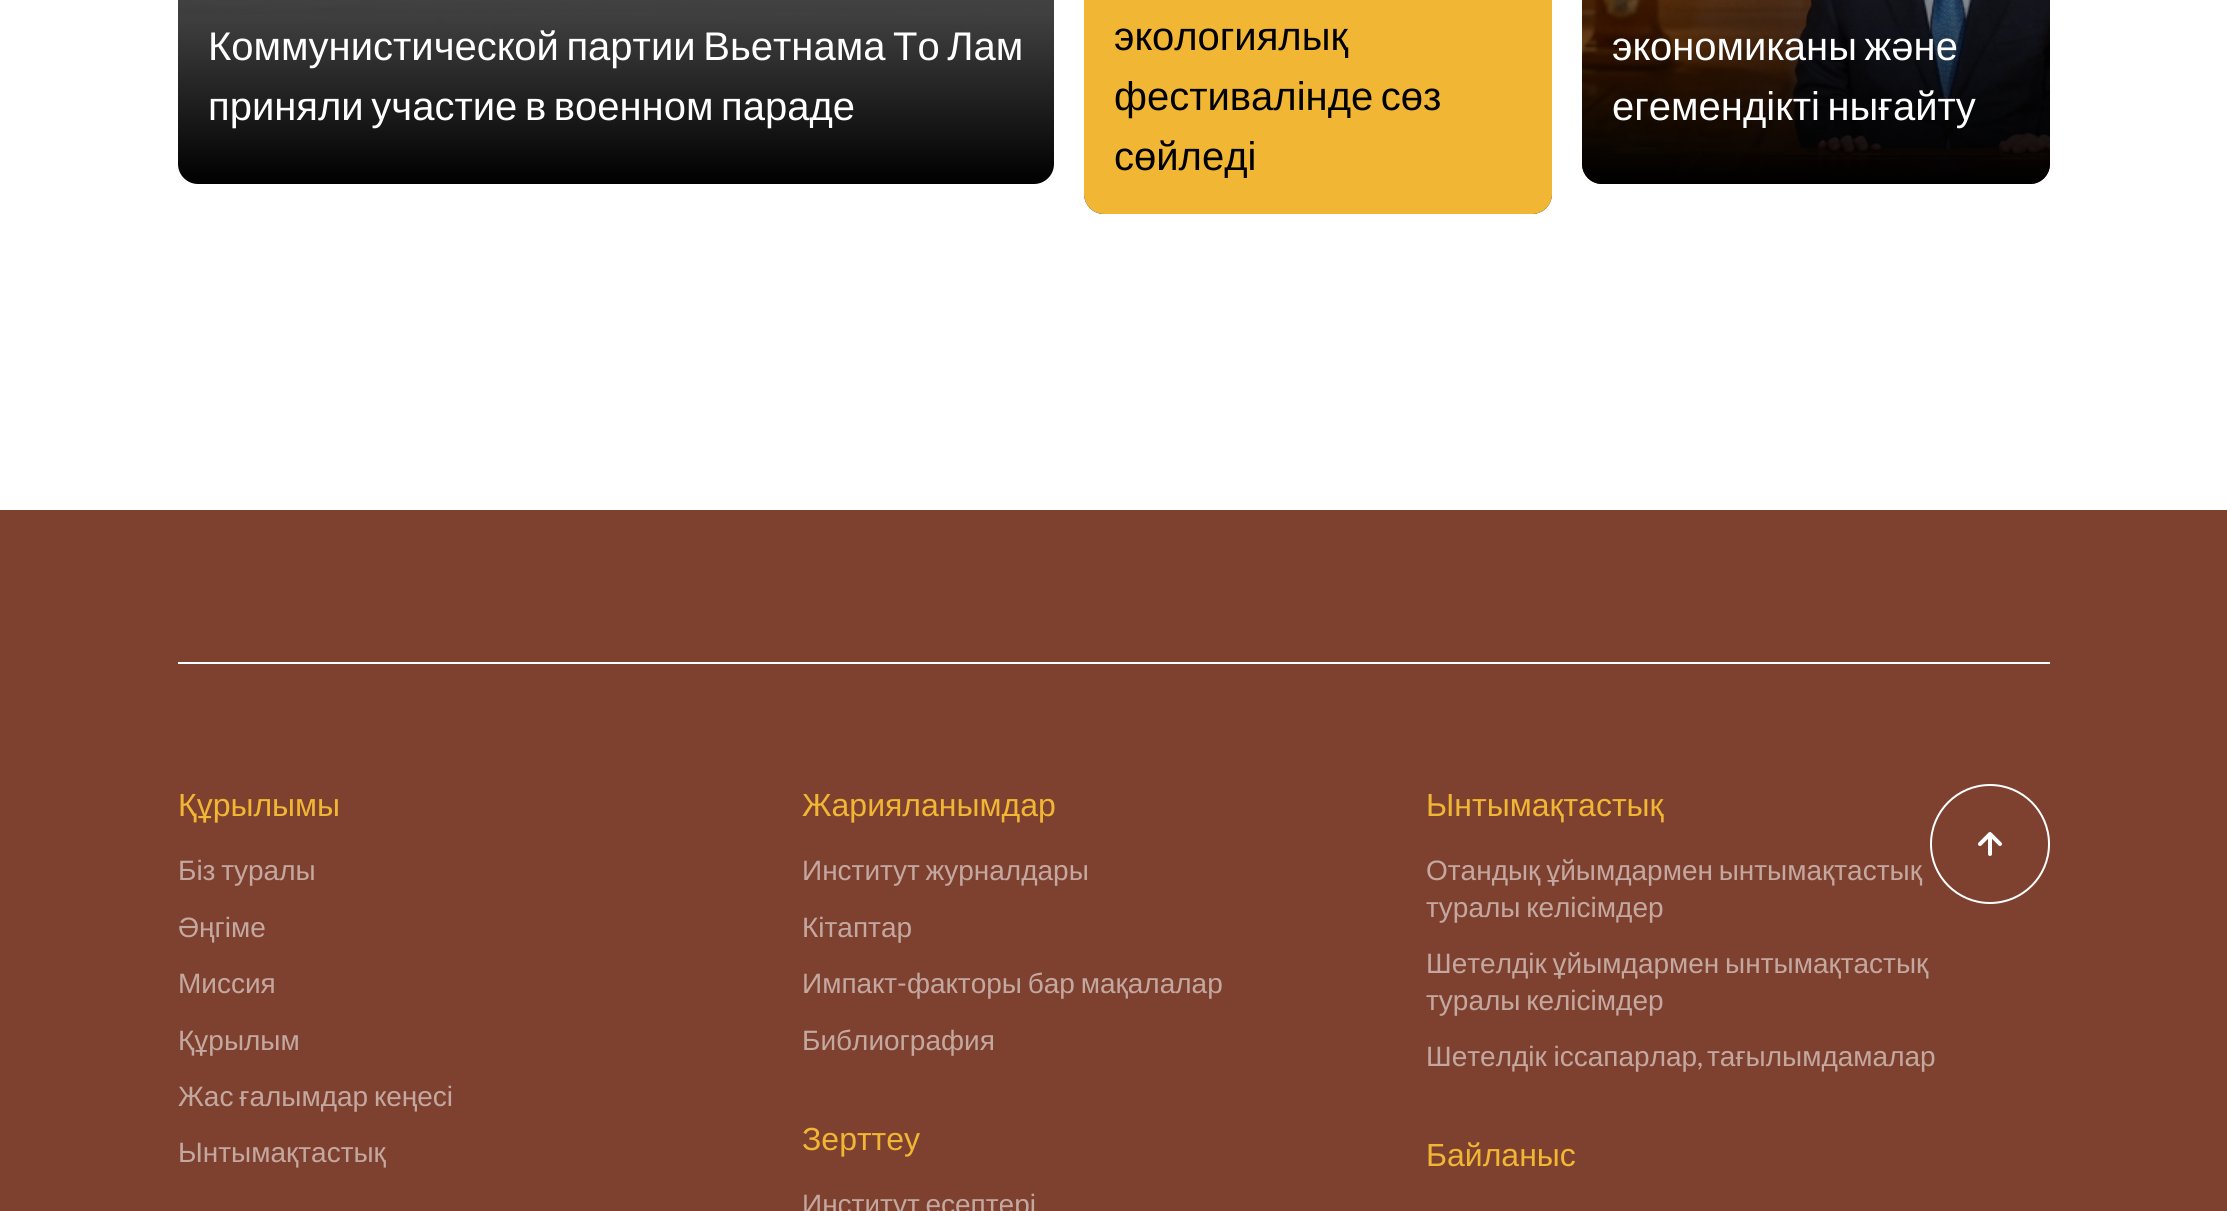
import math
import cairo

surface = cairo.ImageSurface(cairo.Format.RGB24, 2227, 1211)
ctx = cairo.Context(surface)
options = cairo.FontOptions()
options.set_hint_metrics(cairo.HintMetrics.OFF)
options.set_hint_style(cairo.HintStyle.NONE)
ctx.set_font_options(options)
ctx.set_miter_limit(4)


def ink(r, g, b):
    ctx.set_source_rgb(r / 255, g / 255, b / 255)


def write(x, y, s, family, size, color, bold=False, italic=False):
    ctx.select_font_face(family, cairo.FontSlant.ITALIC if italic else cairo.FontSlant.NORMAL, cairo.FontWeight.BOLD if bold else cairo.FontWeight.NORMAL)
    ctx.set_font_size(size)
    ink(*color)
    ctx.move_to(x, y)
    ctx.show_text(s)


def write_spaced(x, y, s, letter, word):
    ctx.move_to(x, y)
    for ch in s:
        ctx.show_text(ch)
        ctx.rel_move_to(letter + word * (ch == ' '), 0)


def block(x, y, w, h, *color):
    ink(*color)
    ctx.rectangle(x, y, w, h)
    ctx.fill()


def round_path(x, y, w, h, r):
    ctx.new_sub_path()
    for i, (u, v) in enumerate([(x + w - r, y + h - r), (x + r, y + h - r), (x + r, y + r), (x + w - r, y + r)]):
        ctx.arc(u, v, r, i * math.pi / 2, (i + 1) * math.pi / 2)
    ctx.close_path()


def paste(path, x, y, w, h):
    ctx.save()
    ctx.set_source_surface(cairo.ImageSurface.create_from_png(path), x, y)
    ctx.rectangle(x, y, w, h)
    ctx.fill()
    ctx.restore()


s1 = dict(family="Liberation Sans", size=40, color=(0, 0, 0))
s2 = dict(family="Liberation Sans", size=32, color=(241, 182, 51))
s3 = dict(family="Liberation Sans", size=28, color=(196, 168, 160))
s4 = dict(family="Lato", size=28, color=(196, 168, 160))

ink(255, 255, 255)
ctx.paint()
paste("pic1.png", 178, 0, 876, 169)
gradient = cairo.LinearGradient(616, -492, 616, 184)
gradient.add_color_stop_rgba(0, 0, 0, 0, 0)
gradient.add_color_stop_rgba(1, 0, 0, 0, 1)
ctx.set_source(gradient)
ctx.new_path()
ctx.move_to(178, -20)
ctx.line_to(1054, -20)
ctx.line_to(1054, 164)
ctx.curve_to(1054, 175, 1045, 184, 1034, 184)
ctx.line_to(198, 184)
ctx.curve_to(187, 184, 178, 175, 178, 164)
ctx.close_path()
ctx.fill()
ctx.select_font_face("Liberation Sans")
ctx.set_font_size(40)
ink(255, 255, 255)
write_spaced(208, 60, "Коммунистической партии Вьетнама То Лам", 0, -3.5)
write_spaced(208, 120, "приняли участие в военном параде", 0, -3.5)
paste("pic2.png", 1084, 194, 468, 20)
ink(241, 182, 51)
round_path(1084, -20, 468, 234, 20)
ctx.fill()
write(1114, 50, "экологиялық", **s1)
write_spaced(1114, 110, "фестивалінде сөз", 0, -3.5)
write(1114, 170, "сөйледі", **s1)
paste("pic3.png", 1582, 0, 468, 184)
gradient = cairo.LinearGradient(1816, -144, 1816, 184)
gradient.add_color_stop_rgba(0, 0, 0, 0, 0)
gradient.add_color_stop_rgba(1, 0, 0, 0, 1)
ctx.set_source(gradient)
ctx.new_path()
ctx.move_to(1582, -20)
ctx.line_to(2050, -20)
ctx.line_to(2050, 164)
ctx.curve_to(2050, 175, 2041, 184, 2030, 184)
ctx.line_to(1602, 184)
ctx.curve_to(1591, 184, 1582, 175, 1582, 164)
ctx.close_path()
ctx.fill()
ink(255, 255, 255)
write_spaced(1612, 60, "экономиканы және", 0, -3.5)
write_spaced(1612, 120, "егемендікті нығайту", 0, -3.5)
block(0, 510, 2227, 701, 126, 65, 48)
block(178, 662, 1872, 2, 255, 255, 255)
write(178, 816, "Құрылымы", **s2)
ctx.set_font_size(28)
ink(196, 168, 160)
write_spaced(178, 880, "Біз туралы", 0, -2)
write(178, 937, "Әңгіме", **s3)
write(178, 993, "Миссия", **s3)
write(178, 1050, "Құрылым", **s3)
write_spaced(178, 1106, "Жас ғалымдар кеңесі", 0, -2)
write(178, 1162, "Ынтымақтастық", **s3)
write(802, 816, "Жарияланымдар", **s2)
ctx.set_font_size(28)
ink(196, 168, 160)
write_spaced(802, 880, "Институт журналдары", 0, -2)
write(802, 937, "Кітаптар", **s3)
write(802, 993, "Импакт", **s3)
write(897, 993, "-", **s4)
ctx.select_font_face("Liberation Sans")
write_spaced(907, 993, "факторы бар мақалалар", 0, -2)
write(802, 1050, "Библиография", **s3)
write(802, 1150, "Зерттеу", **s2)
ctx.set_font_size(28)
ink(196, 168, 160)
write_spaced(802, 1214, "Институт есептері", 0, -2)
write(1426, 816, "Ынтымақтастық", **s2)
ctx.new_path()
ctx.arc(1990, 844, 59, 0, 2 * math.pi)
ink(255, 255, 255)
ctx.stroke()
paste("pic4.png", 1978, 832, 24, 24)
ctx.set_font_size(28)
ink(196, 168, 160)
write_spaced(1426, 880, "Отандық ұйымдармен ынтымақтастық", 0, -2)
write_spaced(1426, 917, "туралы келісімдер", 0, -2)
write_spaced(1426, 973, "Шетелдік ұйымдармен ынтымақтастық", 0, -2)
write_spaced(1426, 1010, "туралы келісімдер", 0, -2)
write_spaced(1426, 1066, "Шетелдік іссапарлар", 0, -1)
write(1697, 1066, ",", **s4)
write(1707, 1066, "тағылымдамалар", **s3)
write(1426, 1166, "Байланыс", **s2)
surface.write_to_png("screenshot.png")
